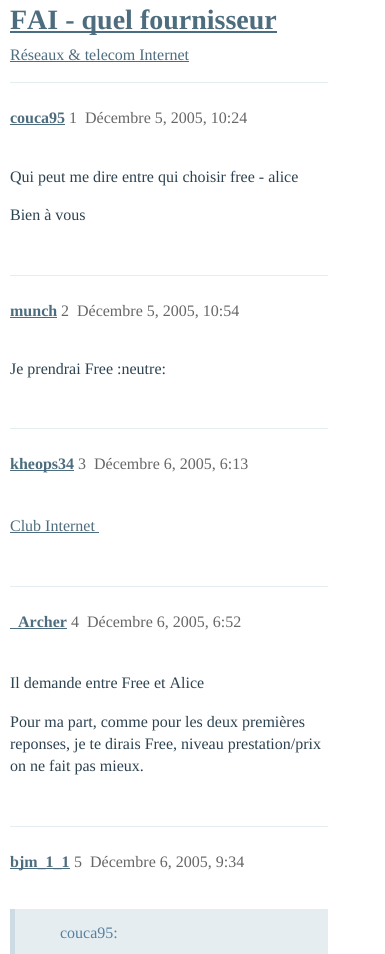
import math
import cairo

surface = cairo.ImageSurface(cairo.Format.RGB24, 385, 954)
ctx = cairo.Context(surface)
options = cairo.FontOptions()
options.set_hint_metrics(cairo.HintMetrics.OFF)
options.set_hint_style(cairo.HintStyle.NONE)
ctx.set_font_options(options)
ctx.set_miter_limit(4)


def ink(r, g, b):
    ctx.set_source_rgb(r / 255, g / 255, b / 255)


def write(x, y, s, family, size, color, bold=False, italic=False):
    ctx.select_font_face(family, cairo.FontSlant.ITALIC if italic else cairo.FontSlant.NORMAL, cairo.FontWeight.BOLD if bold else cairo.FontWeight.NORMAL)
    ctx.set_font_size(size)
    ink(*color)
    ctx.move_to(x, y)
    ctx.show_text(s)


def block(x, y, w, h, *color):
    ink(*color)
    ctx.rectangle(x, y, w, h)
    ctx.fill()


s1 = dict(family="Liberation Serif", size=28, color=(77, 109, 126), bold=True)
s2 = dict(family="Liberation Serif", size=16, color=(77, 109, 126))
s3 = dict(family="Liberation Serif", size=16, color=(77, 109, 126), bold=True)
s4 = dict(family="Liberation Serif", size=16, color=(102, 102, 102))
s5 = dict(family="Liberation Serif", size=16, color=(44, 66, 80))
s6 = dict(family="Liberation Serif", size=16, color=(85, 128, 155))

ink(255, 255, 255)
ctx.paint()
block(10, 31, 267, 2, 77, 109, 126)
write(10, 29, "FAI - quel fournisseur", **s1)
write(10, 60, "Réseaux & telecom Internet", **s2)
block(10, 61, 179, 1, 77, 109, 126)
block(10, 82, 318, 1, 230, 237, 241)
write(10, 123, "couca95", **s3)
block(10, 124, 55, 1, 77, 109, 126)
write(69, 123, "1", **s4)
write(85, 123, "Décembre 5, 2005, 10:24", **s4)
write(10, 182, "Qui peut me dire entre qui choisir free - alice", **s5)
write(10, 220, "Bien à vous", **s5)
block(10, 275, 318, 1, 230, 237, 241)
write(10, 316, "munch", **s3)
block(10, 317, 47, 1, 77, 109, 126)
write(61, 316, "2", **s4)
write(77, 316, "Décembre 5, 2005, 10:54", **s4)
write(10, 374, "Je prendrai Free :neutre:", **s5)
block(10, 428, 318, 1, 230, 237, 241)
block(10, 470, 64, 1, 77, 109, 126)
write(10, 469, "kheops34", **s3)
write(78, 469, "3", **s4)
write(94, 469, "Décembre 6, 2005, 6:13", **s4)
write(10, 531, "Club Internet", **s2)
block(10, 532, 89, 1, 77, 109, 126)
block(10, 586, 318, 1, 230, 237, 241)
write(18, 627, "Archer", **s3)
block(10, 628, 57, 1, 77, 109, 126)
write(71, 627, "4", **s4)
write(87, 627, "Décembre 6, 2005, 6:52", **s4)
write(10, 688, "Il demande entre Free et Alice", **s5)
write(10, 727, "Pour ma part, comme pour les deux premières", **s5)
write(10, 749, "reponses, je te dirais Free, niveau prestation/prix", **s5)
write(10, 771, "on ne fait pas mieux.", **s5)
block(10, 826, 318, 1, 230, 237, 241)
block(10, 868, 60, 1, 77, 109, 126)
write(10, 867, "bjm_1_1", **s3)
write(74, 867, "5", **s4)
write(90, 867, "Décembre 6, 2005, 9:34", **s4)
block(15, 909, 313, 45, 230, 237, 241)
block(10, 909, 5, 45, 205, 219, 228)
write(60, 938, "couca95:", **s6)
surface.write_to_png("screenshot.png")
